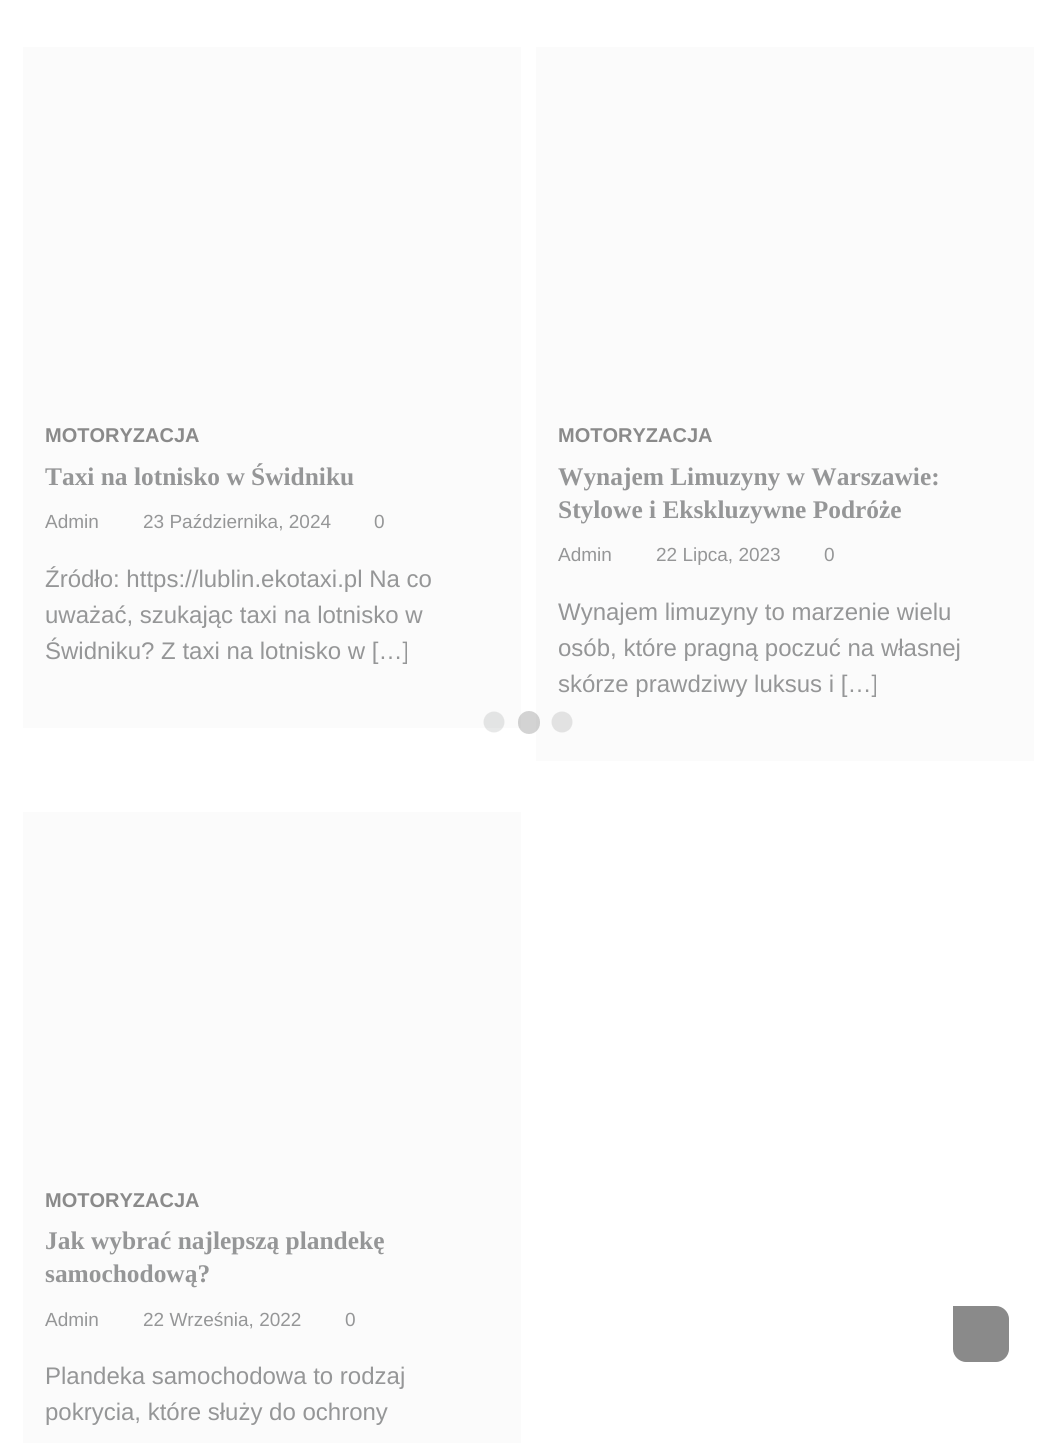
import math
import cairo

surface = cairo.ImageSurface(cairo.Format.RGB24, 1056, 1443)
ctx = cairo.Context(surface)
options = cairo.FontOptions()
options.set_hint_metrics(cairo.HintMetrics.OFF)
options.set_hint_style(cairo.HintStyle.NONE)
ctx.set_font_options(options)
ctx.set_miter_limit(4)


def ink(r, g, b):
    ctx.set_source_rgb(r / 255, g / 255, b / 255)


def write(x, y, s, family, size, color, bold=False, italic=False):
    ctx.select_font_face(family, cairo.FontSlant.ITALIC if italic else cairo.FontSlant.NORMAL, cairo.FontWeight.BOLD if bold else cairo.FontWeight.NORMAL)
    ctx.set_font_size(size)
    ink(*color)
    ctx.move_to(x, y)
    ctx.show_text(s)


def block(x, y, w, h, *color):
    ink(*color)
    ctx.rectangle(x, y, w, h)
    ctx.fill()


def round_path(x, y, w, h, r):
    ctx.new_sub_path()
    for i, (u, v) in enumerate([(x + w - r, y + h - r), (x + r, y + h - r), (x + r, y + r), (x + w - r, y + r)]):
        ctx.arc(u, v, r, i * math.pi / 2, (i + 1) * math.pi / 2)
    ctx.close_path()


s1 = dict(family="Liberation Sans", size=20, color=(138, 138, 138), bold=True)
s2 = dict(family="Liberation Serif", size=25.4, color=(149, 150, 151), bold=True)
s3 = dict(family="Liberation Sans", size=19, color=(149, 150, 151))
s4 = dict(family="Liberation Sans", size=24, color=(149, 150, 151))

ink(255, 255, 255)
ctx.paint()
block(23, 47, 498, 681, 251, 251, 251)
write(45, 442, "MOTORYZACJA", **s1)
write(45, 485, "Taxi na lotnisko w Świdniku", **s2)
write(45, 528, "Admin", **s3)
write(143, 528, "23 Października, 2024", **s3)
write(374, 528, "0", **s3)
write(45, 587, "Źródło: https://lublin.ekotaxi.pl Na co", **s4)
write(45, 623, "uważać, szukając taxi na lotnisko w", **s4)
write(45, 659, "Świdniku? Z taxi na lotnisko w […]", **s4)
block(536, 47, 498, 714, 251, 251, 251)
write(558, 442, "MOTORYZACJA", **s1)
write(558, 485, "Wynajem Limuzyny w Warszawie:", **s2)
write(558, 518, "Stylowe i Ekskluzywne Podróże", **s2)
write(558, 561, "Admin", **s3)
write(656, 561, "22 Lipca, 2023", **s3)
write(824, 561, "0", **s3)
write(558, 620, "Wynajem limuzyny to marzenie wielu", **s4)
write(558, 656, "osób, które pragną poczuć na własnej", **s4)
write(558, 692, "skórze prawdziwy luksus i […]", **s4)
block(23, 812, 498, 631, 251, 251, 251)
write(45, 1207, "MOTORYZACJA", **s1)
write(45, 1249, "Jak wybrać najlepszą plandekę", **s2)
write(45, 1282, "samochodową?", **s2)
write(45, 1326, "Admin", **s3)
write(143, 1326, "22 Września, 2022", **s3)
write(345, 1326, "0", **s3)
write(45, 1384, "Plandeka samochodowa to rodzaj", **s4)
write(45, 1420, "pokrycia, które służy do ochrony", **s4)
gradient = cairo.RadialGradient(562, 722, 0, 562, 722, 11)
gradient.add_color_stop_rgba(0.9, 0.886, 0.886, 0.886, 1)
gradient.add_color_stop_rgba(1, 0.984, 0.984, 0.984, 1)
ctx.set_source(gradient)
ctx.rectangle(551, 711, 22, 22)
ctx.fill()
gradient = cairo.RadialGradient(494, 722, 0, 494, 722, 11)
gradient.add_color_stop_rgba(0.9, 0.098, 0.106, 0.114, 0.1)
gradient.add_color_stop_rgba(1, 0.098, 0.106, 0.114, 0)
ctx.set_source(gradient)
ctx.rectangle(483, 711, 22, 22)
ctx.fill()
ctx.set_source_rgba(0.098, 0.106, 0.114, 0.1)
round_path(518, 711, 22, 23, 11)
ctx.fill()
round_path(518, 711, 22, 23, 11)
ctx.fill()
ink(138, 138, 138)
ctx.new_path()
ctx.move_to(952, 1305)
ctx.line_to(996, 1305)
ctx.curve_to(1003.5, 1305, 1010, 1311.5, 1010, 1319)
ctx.line_to(1010, 1349)
ctx.curve_to(1010, 1356.5, 1003.5, 1363, 996, 1363)
ctx.line_to(966, 1363)
ctx.curve_to(958.5, 1363, 952, 1356.5, 952, 1349)
ctx.close_path()
ctx.fill_preserve()
ink(255, 255, 255)
ctx.stroke()
surface.write_to_png("screenshot.png")
